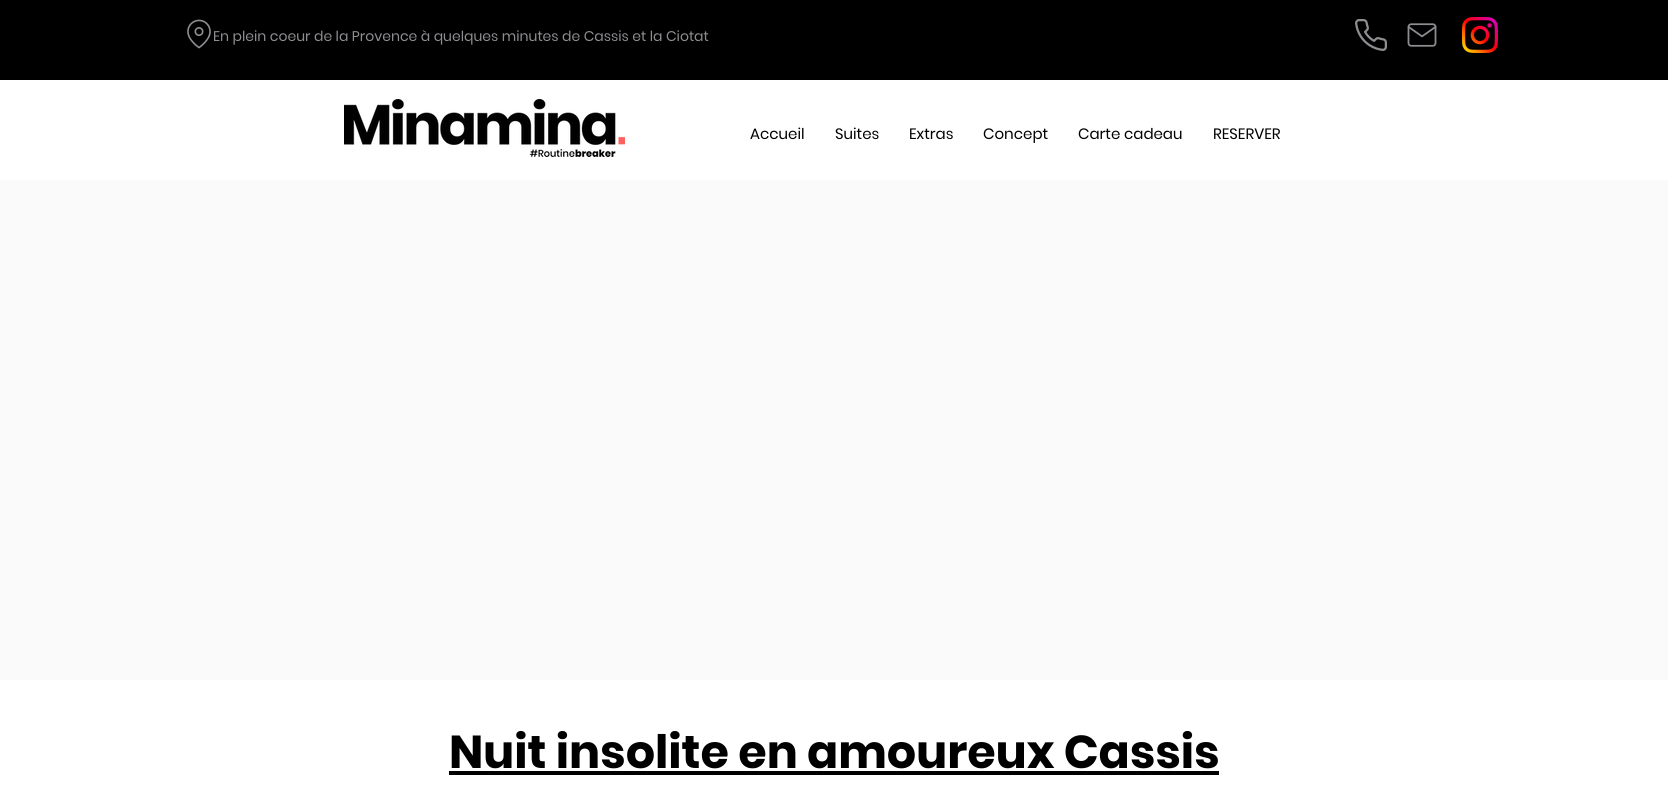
import math
import cairo

surface = cairo.ImageSurface(cairo.Format.RGB24, 1668, 798)
ctx = cairo.Context(surface)
options = cairo.FontOptions()
options.set_hint_metrics(cairo.HintMetrics.OFF)
options.set_hint_style(cairo.HintStyle.NONE)
ctx.set_font_options(options)
ctx.set_miter_limit(4)


def ink(r, g, b):
    ctx.set_source_rgb(r / 255, g / 255, b / 255)


def write(x, y, s, family, size, color, bold=False, italic=False):
    ctx.select_font_face(family, cairo.FontSlant.ITALIC if italic else cairo.FontSlant.NORMAL, cairo.FontWeight.BOLD if bold else cairo.FontWeight.NORMAL)
    ctx.set_font_size(size)
    ink(*color)
    ctx.move_to(x, y)
    ctx.show_text(s)


def block(x, y, w, h, *color):
    ink(*color)
    ctx.rectangle(x, y, w, h)
    ctx.fill()


def paste(path, x, y, w, h):
    ctx.save()
    ctx.set_source_surface(cairo.ImageSurface.create_from_png(path), x, y)
    ctx.rectangle(x, y, w, h)
    ctx.fill()
    ctx.restore()


s1 = dict(family="Poppins", size=14, color=(142, 141, 145))
s2 = dict(family="Poppins", size=15, color=(0, 0, 0))
s3 = dict(family="Poppins", size=46, color=(0, 0, 0), bold=True)

ink(255, 255, 255)
ctx.paint()
block(0, 0, 1668, 80, 0, 0, 0)
paste("pic1.png", 187, 19, 24, 30)
write(213, 41, "En plein coeur de la Provence à quelques minutes de Cassis et la Ciotat", **s1)
paste("pic2.png", 1355, 19, 32, 32)
paste("pic3.png", 1407, 23, 30, 24)
paste("pic4.png", 1462, 17, 36, 36)
paste("pic5.png", 344, 99, 281, 58)
write(750, 139, "Accueil", **s2)
write(835, 139, "Suites", **s2)
write(909, 139, "Extras", **s2)
write(983, 139, "Concept", **s2)
write(1078, 139, "Carte cadeau", **s2)
write(1213, 139, "RESERVER", **s2)
block(0, 180, 1668, 500, 250, 250, 250)
write(449, 768, "Nuit insolite en amoureux Cassis", **s3)
block(449, 771, 770, 4, 0, 0, 0)
surface.write_to_png("screenshot.png")
